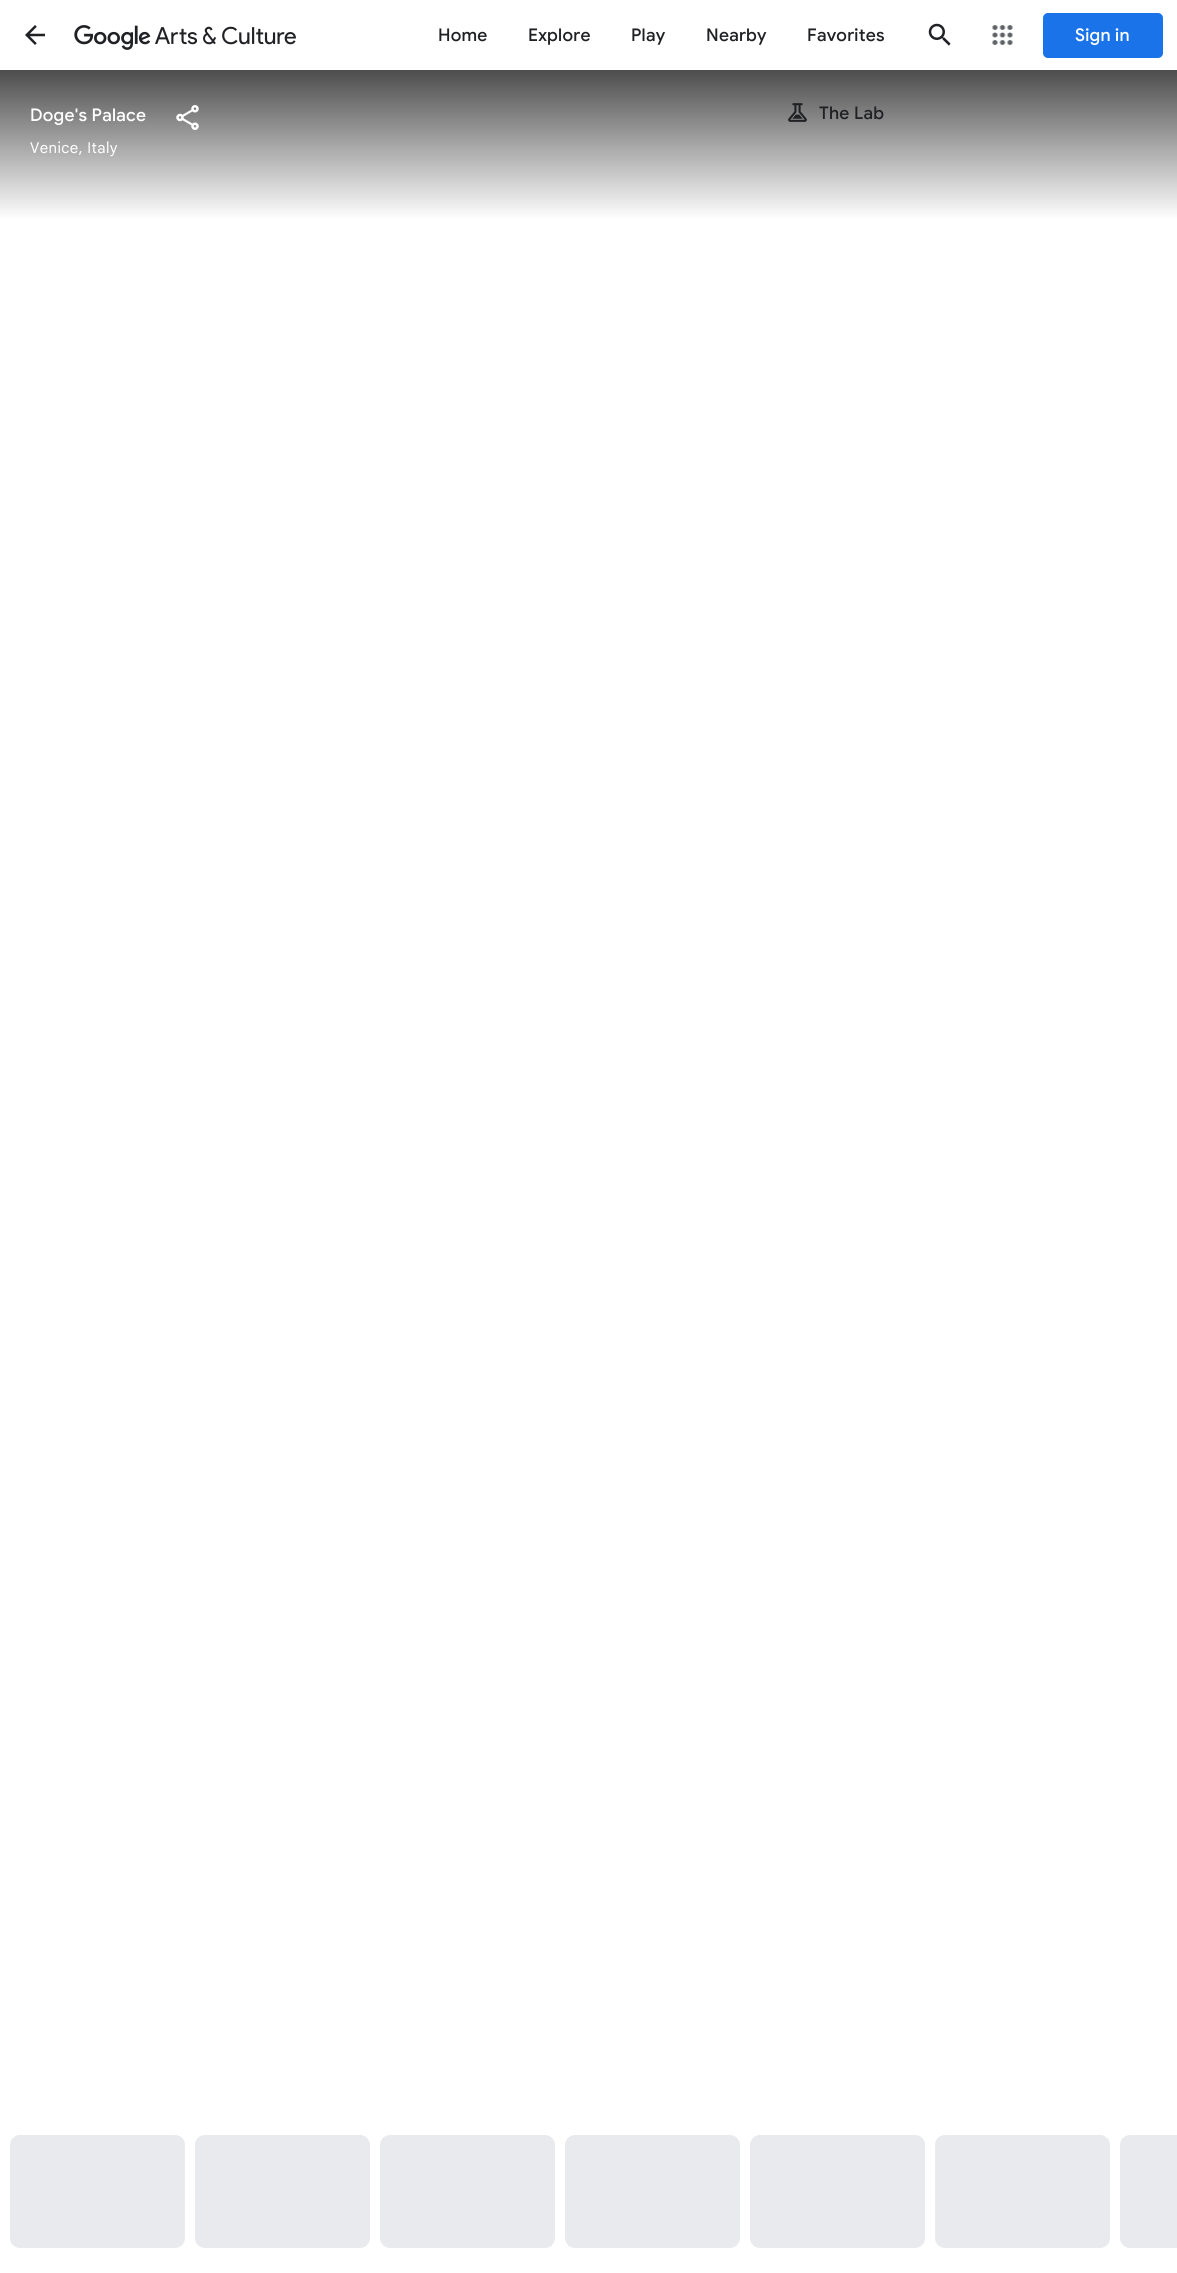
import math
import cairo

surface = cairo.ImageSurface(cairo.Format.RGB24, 1177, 2273)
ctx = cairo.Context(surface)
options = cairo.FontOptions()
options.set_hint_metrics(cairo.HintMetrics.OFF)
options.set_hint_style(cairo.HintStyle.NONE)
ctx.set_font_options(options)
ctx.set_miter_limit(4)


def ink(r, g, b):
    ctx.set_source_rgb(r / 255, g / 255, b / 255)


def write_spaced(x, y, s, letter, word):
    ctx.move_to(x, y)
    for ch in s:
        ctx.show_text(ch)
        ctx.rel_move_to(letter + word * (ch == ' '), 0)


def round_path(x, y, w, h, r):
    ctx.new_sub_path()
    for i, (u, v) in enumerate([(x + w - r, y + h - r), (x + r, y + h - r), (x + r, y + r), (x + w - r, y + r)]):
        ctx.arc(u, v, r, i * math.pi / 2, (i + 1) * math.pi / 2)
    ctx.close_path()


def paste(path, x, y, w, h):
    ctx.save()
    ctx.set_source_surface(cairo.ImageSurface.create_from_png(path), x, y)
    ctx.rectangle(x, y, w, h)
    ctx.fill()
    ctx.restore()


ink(255, 255, 255)
ctx.paint()
paste("pic1.png", 25, 25, 20, 20)
paste("pic2.png", 74, 25, 222, 25)
ctx.select_font_face("Google Sans Medium")
ctx.set_font_size(17.5)
ink(32, 33, 36)
write_spaced(438, 41, "Home", 0.25, 0)
write_spaced(528, 41, "Explore", 0.25, 0)
write_spaced(631, 41, "Play", 0.25, 0)
write_spaced(706, 41, "Nearby", 0.25, 0)
write_spaced(807, 41, "Favorites", 0.25, 0)
gradient = cairo.LinearGradient(589, 70, 589, 220)
gradient.add_color_stop_rgba(0, 0.302, 0.302, 0.302, 1)
gradient.add_color_stop_rgba(1, 1, 1, 1, 1)
ctx.set_source(gradient)
ctx.rectangle(0, 70, 1177, 148)
ctx.fill()
paste("pic3.png", 788, 103, 19, 19)
ink(32, 33, 36)
write_spaced(819, 119, "The Lab", 0.25, 0)
paste("pic4.png", 928, 23, 23, 23)
paste("pic5.png", 992, 25, 21, 20)
ink(26, 115, 232)
round_path(1043, 13, 120, 45, 5)
ctx.fill()
ink(255, 255, 255)
write_spaced(1075, 41, "Sign in", 0.25, 0)
write_spaced(30, 121, "Doge's Palace", 0.25, 0)
paste("pic6.png", 176, 105, 23, 25)
ctx.select_font_face("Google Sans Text")
ctx.set_font_size(15)
write_spaced(30, 153, "Venice, Italy", 0.4, 0)
ink(232, 234, 237)
round_path(10, 2135, 175, 113, 10)
ctx.fill()
round_path(195, 2135, 175, 113, 10)
ctx.fill()
round_path(380, 2135, 175, 113, 10)
ctx.fill()
round_path(565, 2135, 175, 113, 10)
ctx.fill()
round_path(750, 2135, 175, 113, 10)
ctx.fill()
round_path(935, 2135, 175, 113, 10)
ctx.fill()
ctx.new_path()
ctx.move_to(1130, 2135)
ctx.line_to(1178, 2135)
ctx.line_to(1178, 2248)
ctx.line_to(1130, 2248)
ctx.curve_to(1124.5, 2248, 1120, 2243.5, 1120, 2238)
ctx.line_to(1120, 2145)
ctx.curve_to(1120, 2139.5, 1124.5, 2135, 1130, 2135)
ctx.close_path()
ctx.fill()
surface.write_to_png("screenshot.png")
